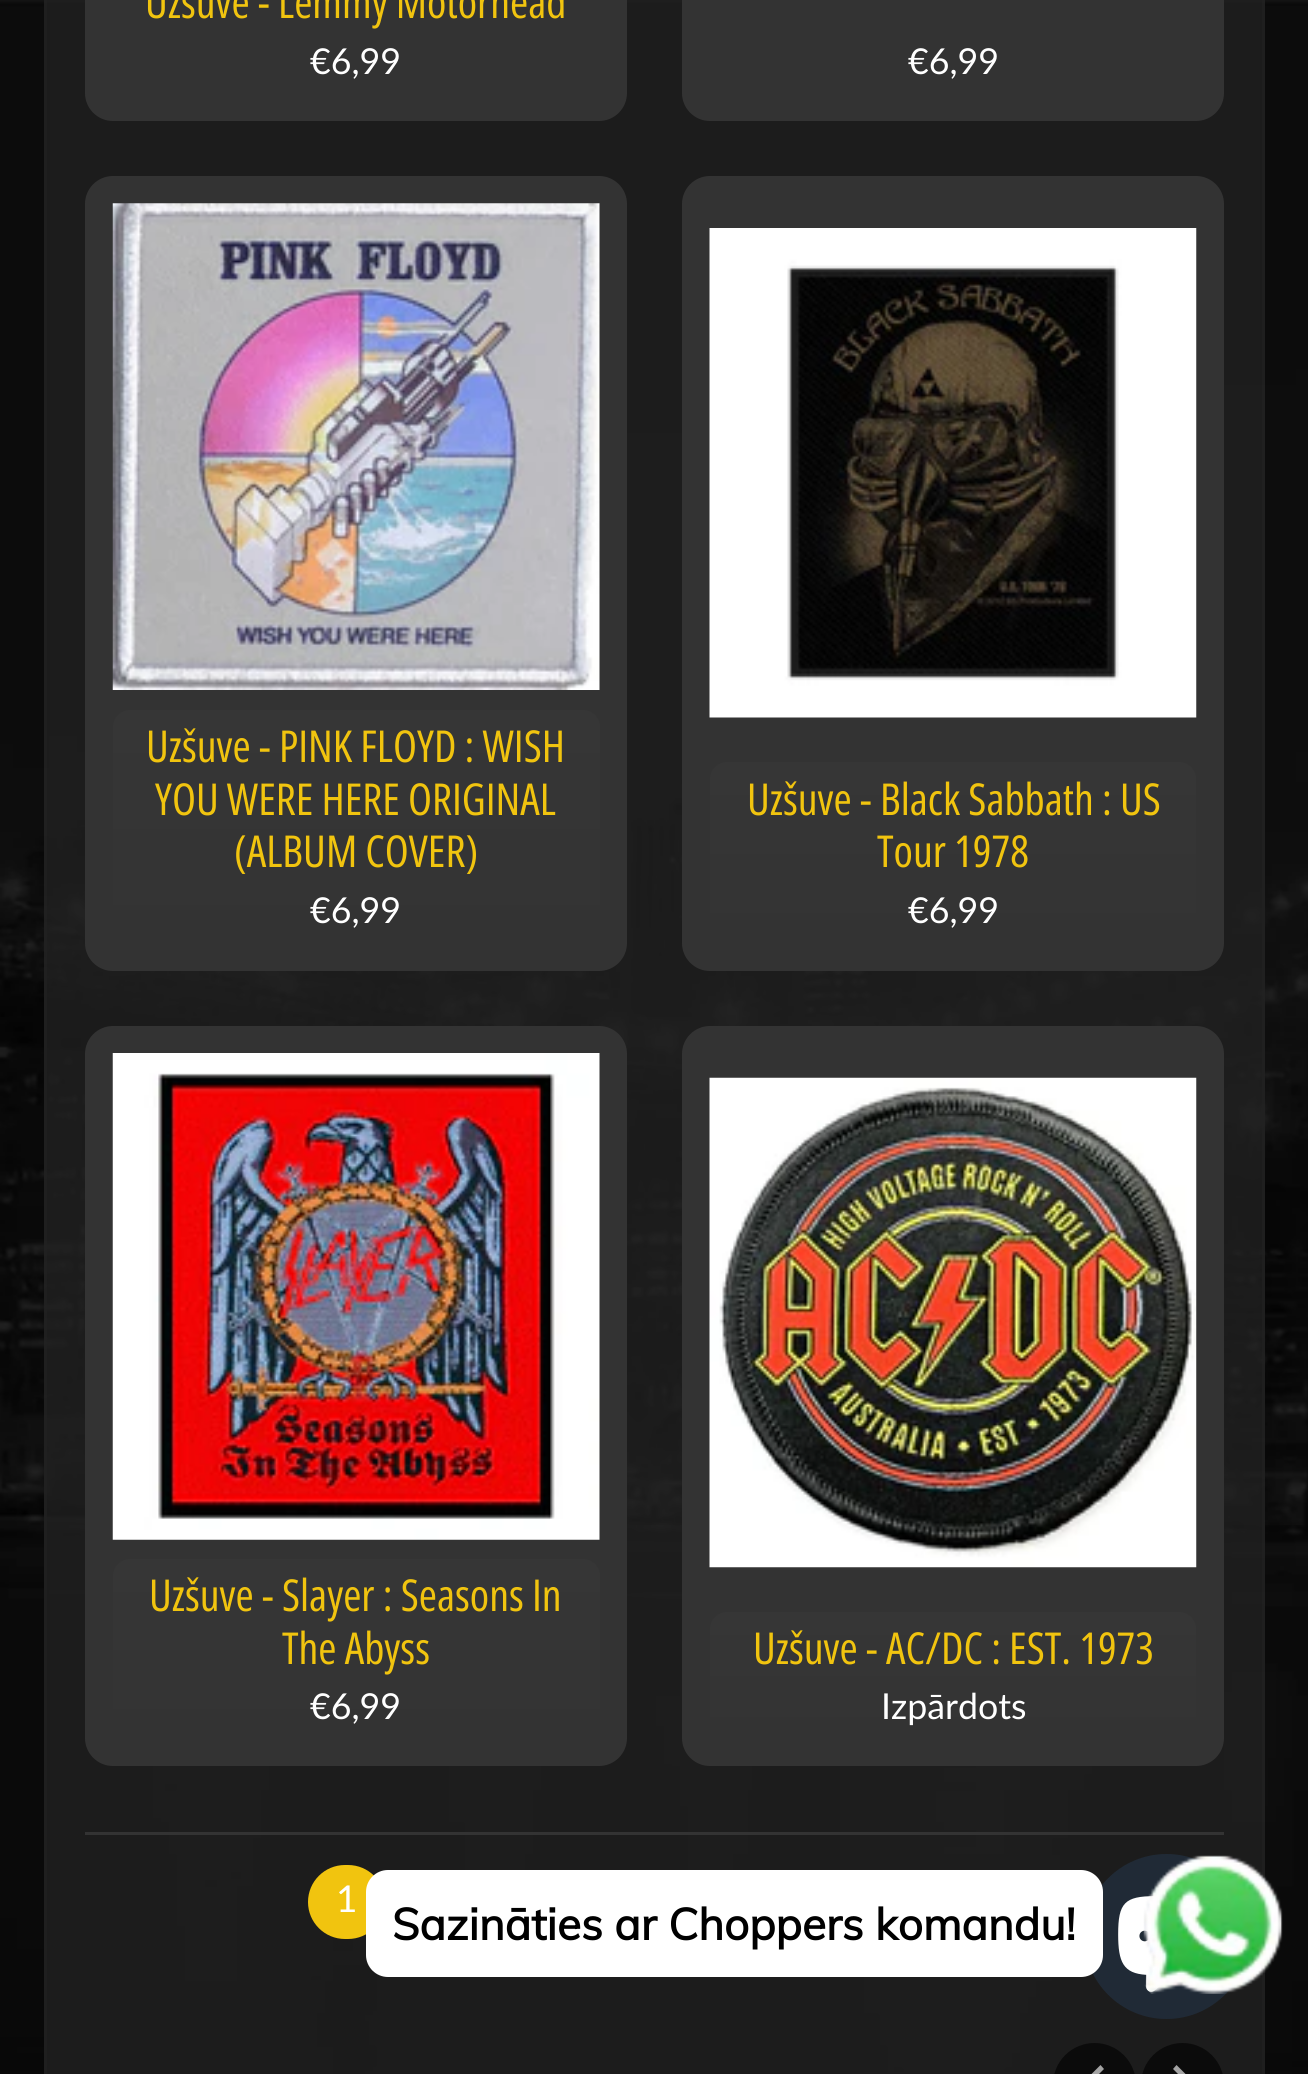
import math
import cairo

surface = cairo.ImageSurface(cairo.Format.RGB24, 1308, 2074)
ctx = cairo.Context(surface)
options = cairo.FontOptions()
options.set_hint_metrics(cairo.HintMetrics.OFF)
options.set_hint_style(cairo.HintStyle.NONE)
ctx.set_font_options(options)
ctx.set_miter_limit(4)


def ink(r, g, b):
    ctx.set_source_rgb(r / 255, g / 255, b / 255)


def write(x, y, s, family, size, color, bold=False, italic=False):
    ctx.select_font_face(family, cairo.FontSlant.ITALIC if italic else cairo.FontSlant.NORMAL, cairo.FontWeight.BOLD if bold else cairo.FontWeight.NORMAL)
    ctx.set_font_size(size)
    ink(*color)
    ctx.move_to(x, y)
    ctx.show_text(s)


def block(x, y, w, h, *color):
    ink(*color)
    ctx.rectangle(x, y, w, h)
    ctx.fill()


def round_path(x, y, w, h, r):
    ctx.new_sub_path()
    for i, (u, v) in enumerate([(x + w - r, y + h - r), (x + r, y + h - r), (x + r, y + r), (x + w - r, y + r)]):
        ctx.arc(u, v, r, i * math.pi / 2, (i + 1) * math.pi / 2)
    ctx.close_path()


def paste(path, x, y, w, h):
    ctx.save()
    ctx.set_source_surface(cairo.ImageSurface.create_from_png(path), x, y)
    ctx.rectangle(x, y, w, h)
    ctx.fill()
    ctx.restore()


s1 = dict(family="Open Sans Condensed", size=44, color=(241, 196, 15))
s2 = dict(family="Lato", size=35.75, color=(255, 255, 255))
s3 = dict(family="Lato", size=37, color=(255, 255, 255))
s4 = dict(family="Muli", size=44, color=(0, 0, 0), bold=True)

ink(255, 255, 255)
ctx.paint()
paste("pic1.png", 0, 0, 1308, 2074)
ctx.rectangle(45.5, -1.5, 1218, 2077)
ctx.set_source_rgba(0.133, 0.133, 0.133, 0.7)
ctx.set_line_width(3)
ctx.stroke()
ink(51, 51, 51)
round_path(85, -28, 542, 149, 28)
ctx.fill()
write(145, 18, "Uzšuve - Lemmy Motörhead", **s1)
write(310, 74, "€6,99", **s2)
ink(51, 51, 51)
round_path(682, -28, 542, 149, 28)
ctx.fill()
write(908, 74, "€6,99", **s2)
ink(51, 51, 51)
round_path(85, 176, 542, 795, 28)
ctx.fill()
paste("pic2.png", 112, 203, 488, 487)
gradient = cairo.LinearGradient(356, 710, 356, 943)
gradient.add_color_stop_rgba(0, 0.212, 0.212, 0.212, 1)
gradient.add_color_stop_rgba(1, 0.2, 0.2, 0.2, 1)
ctx.set_source(gradient)
round_path(113, 710, 487, 233, 17)
ctx.fill()
write(146, 762, "Uzšuve - PINK FLOYD : WISH", **s1)
write(155, 815, "YOU WERE HERE ORIGINAL", **s1)
write(234, 867, "(ALBUM COVER)", **s1)
write(310, 923, "€6,99", **s2)
ink(51, 51, 51)
round_path(682, 176, 542, 795, 28)
ctx.fill()
paste("pic3.png", 709, 228, 488, 490)
gradient = cairo.LinearGradient(953, 762, 953, 943)
gradient.add_color_stop_rgba(0, 0.212, 0.212, 0.212, 1)
gradient.add_color_stop_rgba(1, 0.2, 0.2, 0.2, 1)
ctx.set_source(gradient)
round_path(710, 762, 486, 181, 17)
ctx.fill()
write(747, 815, "Uzšuve - Black Sabbath : US", **s1)
write(877, 867, "Tour 1978", **s1)
write(908, 923, "€6,99", **s2)
ink(51, 51, 51)
round_path(85, 1026, 542, 740, 28)
ctx.fill()
paste("pic4.png", 112, 1053, 488, 487)
gradient = cairo.LinearGradient(356, 1559, 356, 1738)
gradient.add_color_stop_rgba(0, 0.212, 0.212, 0.212, 1)
gradient.add_color_stop_rgba(1, 0.2, 0.2, 0.2, 1)
ctx.set_source(gradient)
round_path(113, 1559, 487, 179, 17)
ctx.fill()
write(149, 1611, "Uzšuve - Slayer : Seasons In", **s1)
write(282, 1664, "The Abyss", **s1)
write(310, 1719, "€6,99", **s2)
ink(51, 51, 51)
round_path(682, 1026, 542, 740, 28)
ctx.fill()
paste("pic5.png", 709, 1077, 488, 491)
gradient = cairo.LinearGradient(953, 1612, 953, 1738)
gradient.add_color_stop_rgba(0, 0.212, 0.212, 0.212, 1)
gradient.add_color_stop_rgba(1, 0.2, 0.2, 0.2, 1)
ctx.set_source(gradient)
round_path(710, 1612, 486, 126, 17)
ctx.fill()
write(753, 1664, "Uzšuve - AC/DC : EST. 1973", **s1)
write(881, 1719, "Izpārdots", **s2)
block(85, 1832, 1139, 3, 51, 51, 51)
ink(241, 196, 15)
round_path(308, 1865, 77, 74, 37)
ctx.fill()
write(336, 1912, "1", **s3)
ink(11, 11, 11)
round_path(1053, 2043, 83, 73, 41.5)
ctx.fill()
ink(164, 164, 164)
ctx.new_path()
ctx.move_to(1100.5, 2065)
ctx.line_to(1104, 2069)
ctx.line_to(1088.5, 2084.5)
ctx.line_to(1104, 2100)
ctx.line_to(1100.5, 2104)
ctx.line_to(1081, 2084.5)
ctx.close_path()
ctx.fill()
ink(11, 11, 11)
round_path(1141, 2043, 83, 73, 41.5)
ctx.fill()
ink(164, 164, 164)
ctx.new_path()
ctx.move_to(1176.5, 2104)
ctx.line_to(1173, 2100)
ctx.line_to(1188.5, 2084.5)
ctx.line_to(1173, 2069)
ctx.line_to(1176.5, 2065)
ctx.line_to(1196, 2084.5)
ctx.close_path()
ctx.fill()
ink(32, 42, 54)
ctx.arc(1166.5, 1936.5, 82.5, 0, 2 * math.pi)
ctx.fill()
paste("pic7.png", 1118, 1896, 42, 96)
paste("pic6.png", 1143, 1855, 140, 139)
ink(255, 255, 255)
round_path(366, 1870, 737, 107, 22)
ctx.fill()
write(392, 1940, "Sazināties ar Choppers komandu!", **s4)
surface.write_to_png("screenshot.png")
